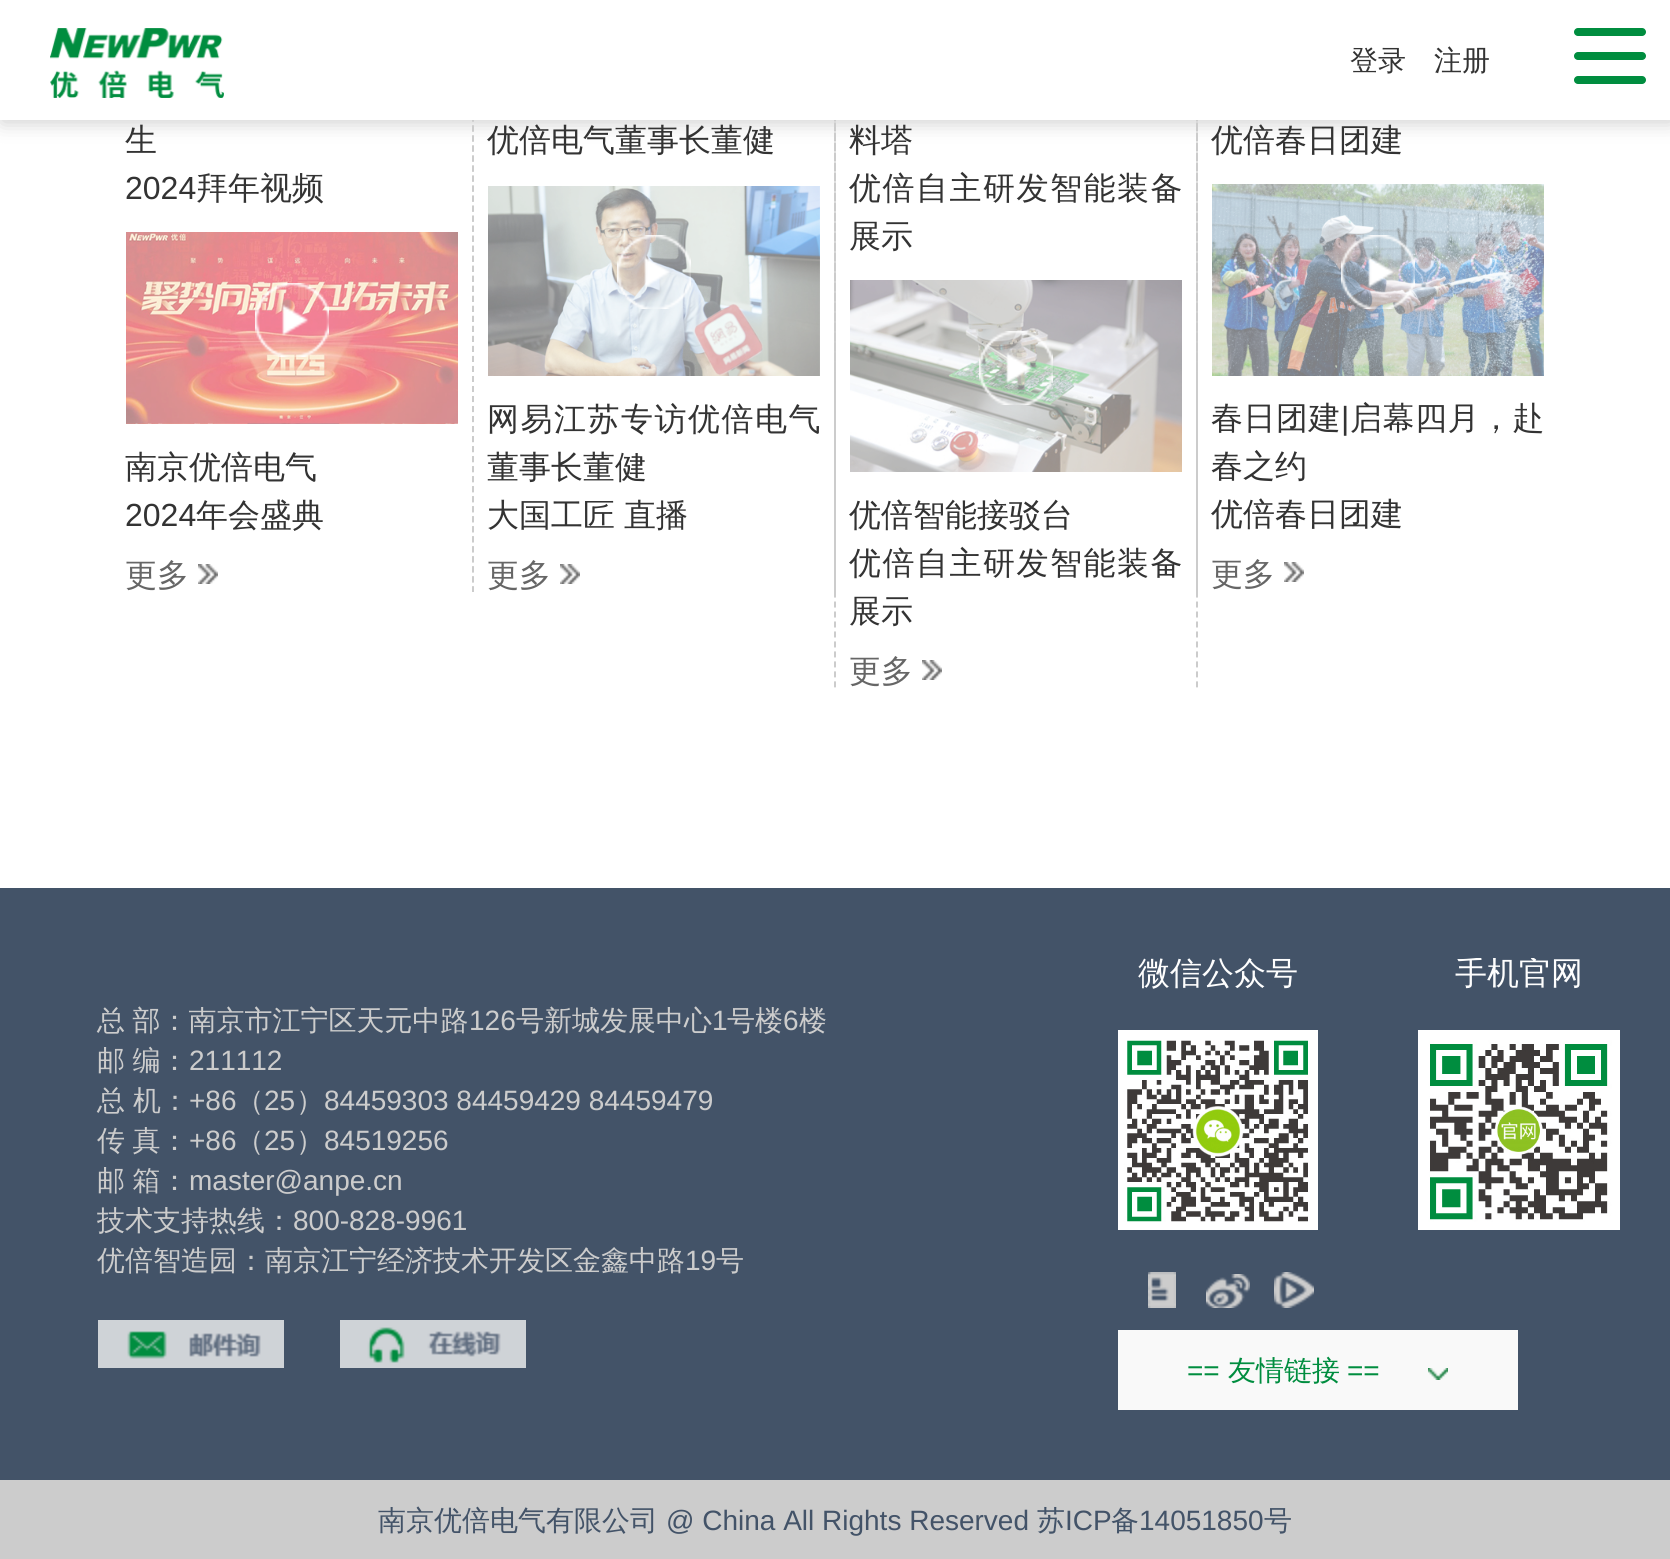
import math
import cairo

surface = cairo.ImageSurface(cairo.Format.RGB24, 1670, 1559)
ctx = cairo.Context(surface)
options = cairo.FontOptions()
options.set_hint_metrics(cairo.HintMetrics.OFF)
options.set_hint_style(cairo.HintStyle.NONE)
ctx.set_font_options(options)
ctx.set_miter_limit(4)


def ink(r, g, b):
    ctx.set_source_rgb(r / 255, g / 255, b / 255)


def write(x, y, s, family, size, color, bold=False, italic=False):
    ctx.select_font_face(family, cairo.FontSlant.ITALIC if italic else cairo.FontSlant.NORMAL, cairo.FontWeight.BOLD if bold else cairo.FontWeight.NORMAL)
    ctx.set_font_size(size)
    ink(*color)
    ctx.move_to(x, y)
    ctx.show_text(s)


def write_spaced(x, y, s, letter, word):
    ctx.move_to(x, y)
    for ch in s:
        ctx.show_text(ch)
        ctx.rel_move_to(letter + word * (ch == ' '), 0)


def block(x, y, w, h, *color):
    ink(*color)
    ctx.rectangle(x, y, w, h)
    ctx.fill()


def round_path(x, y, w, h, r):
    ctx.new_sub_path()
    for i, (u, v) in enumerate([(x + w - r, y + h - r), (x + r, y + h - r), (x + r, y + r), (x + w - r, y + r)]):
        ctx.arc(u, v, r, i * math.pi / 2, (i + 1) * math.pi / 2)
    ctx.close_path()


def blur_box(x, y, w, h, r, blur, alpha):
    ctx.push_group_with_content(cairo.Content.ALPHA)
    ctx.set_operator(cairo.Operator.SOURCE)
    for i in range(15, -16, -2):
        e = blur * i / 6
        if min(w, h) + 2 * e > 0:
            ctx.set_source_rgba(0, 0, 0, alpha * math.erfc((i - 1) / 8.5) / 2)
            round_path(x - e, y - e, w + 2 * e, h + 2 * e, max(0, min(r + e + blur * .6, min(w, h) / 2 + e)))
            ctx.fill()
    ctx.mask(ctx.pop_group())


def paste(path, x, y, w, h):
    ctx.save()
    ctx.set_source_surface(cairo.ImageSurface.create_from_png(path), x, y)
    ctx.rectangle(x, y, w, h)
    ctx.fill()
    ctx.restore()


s1 = dict(family="WenQuanYi Zen Hei Medium", size=28, color=(51, 51, 51))
s2 = dict(family="WenQuanYi Zen Hei Medium", size=32, color=(51, 51, 51))
s3 = dict(family="Liberation Sans", size=32, color=(51, 51, 51))
s4 = dict(family="WenQuanYi Zen Hei Medium", size=32, color=(102, 102, 102))
s5 = dict(family="Liberation Sans", size=28, color=(204, 204, 204))
s6 = dict(family="WenQuanYi Zen Hei Medium", size=28, color=(204, 204, 204))
s7 = dict(family="WenQuanYi Zen Hei Medium", size=32, color=(254, 254, 254))
s8 = dict(family="Liberation Sans", size=28, color=(0, 141, 63))
s9 = dict(family="WenQuanYi Zen Hei Medium", size=28, color=(0, 141, 63))
s10 = dict(family="WenQuanYi Zen Hei Medium", size=28, color=(67, 83, 104))
s11 = dict(family="Liberation Sans", size=28, color=(67, 83, 104))

ink(255, 255, 255)
ctx.paint()
ctx.new_path()
ctx.move_to(473, -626)
ctx.line_to(473, 592)
ink(204, 204, 204)
ctx.set_dash([6, 4.02])
ctx.stroke()
ctx.new_path()
ctx.move_to(473, -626)
ctx.line_to(473, 592)
ctx.stroke()
ctx.new_path()
ctx.move_to(835, -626)
ctx.line_to(835, 592)
ctx.stroke()
ctx.new_path()
ctx.move_to(835, -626)
ctx.line_to(835, 688)
ctx.set_dash([6, 3.98])
ctx.stroke()
ctx.new_path()
ctx.move_to(1197, -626)
ctx.line_to(1197, 688)
ctx.stroke()
ctx.new_path()
ctx.move_to(1197, -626)
ctx.line_to(1197, 592)
ctx.set_dash([6, 4.02])
ctx.stroke()
ink(204, 204, 204)
blur_box(2, 2, 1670, 120, 0, 10, 1)
block(0, 0, 1670, 120, 255, 255, 255)
paste("pic1.png", 50, 28, 174, 70)
write(1350, 70, "登录", **s1)
write(1434, 70, "注册", **s1)
ink(0, 141, 63)
round_path(1574, 28, 72, 8, 4)
ctx.fill()
round_path(1574, 52, 72, 8, 4)
ctx.fill()
round_path(1574, 76, 72, 8, 4)
ctx.fill()
write(125, 151, "生", **s2)
write(125, 199, "2024", **s3)
write(196, 199, "拜年视频", **s2)
paste("pic2.png", 126, 232, 332, 192)
paste("pic3.png", 255, 283, 74, 74)
write(125, 478, "南京优倍电气", **s2)
write(125, 526, "2024", **s3)
write(196, 526, "年会盛典", **s2)
write(125, 586, "更多", **s4)
paste("pic4.png", 198, 564, 20, 20)
write(487, 151, "优倍电气董事长董健", **s2)
paste("pic5.png", 488, 186, 332, 190)
paste("pic6.png", 617, 235, 74, 74)
write_spaced(487, 430, "网易江苏专访优倍电气", 1.5, 0)
write(487, 478, "董事长董健", **s2)
write(487, 526, "大国工匠", **s2)
write(624, 526, "直播", **s2)
write(487, 586, "更多", **s4)
paste("pic4.png", 560, 564, 20, 20)
write(849, 151, "料塔", **s2)
write_spaced(849, 199, "优倍自主研发智能装备", 1.5, 0)
write(849, 247, "展示", **s2)
paste("pic7.png", 850, 280, 332, 192)
paste("pic8.png", 979, 331, 74, 74)
write(849, 526, "优倍智能接驳台", **s2)
write_spaced(849, 574, "优倍自主研发智能装备", 1.5, 0)
write(849, 622, "展示", **s2)
write(849, 682, "更多", **s4)
paste("pic4.png", 922, 660, 20, 20)
write(1211, 151, "优倍春日团建", **s2)
paste("pic9.png", 1212, 184, 332, 192)
paste("pic10.png", 1341, 235, 74, 74)
write_spaced(1211, 429, "春日团建", 0.5, 0)
ctx.select_font_face("Liberation Sans")
write_spaced(1341, 429, "|", 0.5, 0)
ctx.select_font_face("WenQuanYi Zen Hei Medium")
write_spaced(1350, 429, "启幕四月，赴", 0.5, 0)
write(1211, 477, "春之约", **s2)
write(1211, 525, "优倍春日团建", **s2)
write(1211, 585, "更多", **s4)
paste("pic4.png", 1284, 562, 20, 20)
block(0, 888, 1670, 592, 67, 83, 104)
ctx.set_font_size(28)
ink(204, 204, 204)
write_spaced(97, 1030, "总 部：南京市江宁区天元中路", 0, -1)
write(469, 1030, "126", **s5)
write(516, 1030, "号新城发展中心", **s6)
write(712, 1030, "1", **s5)
write(727, 1030, "号楼", **s6)
write(783, 1030, "6", **s5)
write(799, 1030, "楼", **s6)
write_spaced(97, 1070, "邮 编：", 0, -1)
write(189, 1070, "211112", **s5)
write(97, 1110, "总", **s6)
write(133, 1110, "机：", **s6)
write(189, 1110, "+86", **s5)
write(236, 1110, "（", **s6)
write(264, 1110, "25", **s5)
write(296, 1110, "）", **s6)
write(324, 1110, "84459303 84459429 84459479", **s5)
ctx.select_font_face("WenQuanYi Zen Hei Medium")
write_spaced(97, 1150, "传 真：", 0, -1)
write(189, 1150, "+86", **s5)
write(236, 1150, "（", **s6)
write(264, 1150, "25", **s5)
write(296, 1150, "）", **s6)
write(324, 1150, "84519256", **s5)
ctx.select_font_face("WenQuanYi Zen Hei Medium")
write_spaced(97, 1190, "邮 箱：", 0, -1)
write(189, 1190, "master@anpe.cn", **s5)
write(97, 1230, "技术支持热线：", **s6)
write(293, 1230, "800-828-9961", **s5)
write(97, 1270, "优倍智造园：南京江宁经济技术开发区金鑫中路", **s6)
write(685, 1270, "19", **s5)
write(716, 1270, "号", **s6)
paste("pic11.png", 98, 1320, 186, 48)
paste("pic12.png", 340, 1320, 186, 48)
write(1138, 984, "微信公众号", **s7)
paste("pic13.png", 1118, 1030, 200, 200)
ctx.save()
ctx.rectangle(1418, 958, 202, 272)
ctx.clip()
write(1455, 984, "手机官网", **s7)
ctx.restore()
paste("pic14.png", 1418, 1030, 202, 200)
paste("pic15.png", 1148, 1272, 28, 36)
paste("pic16.png", 1206, 1274, 44, 34)
paste("pic17.png", 1274, 1272, 40, 36)
block(1118, 1330, 400, 80, 249, 249, 249)
write(1187, 1380, "==", **s8)
write(1228, 1380, "友情链接", **s9)
write(1347, 1380, "==", **s8)
paste("pic18.png", 1428, 1368, 20, 12)
block(0, 1480, 1670, 79, 204, 204, 204)
write(378, 1530, "南京优倍电气有限公司", **s10)
write(666, 1530, "@ China All Rights Reserved", **s11)
write(1037, 1530, "苏", **s10)
write(1065, 1530, "ICP", **s11)
write(1111, 1530, "备", **s10)
write(1139, 1530, "14051850", **s11)
write(1264, 1530, "号", **s10)
surface.write_to_png("screenshot.png")
